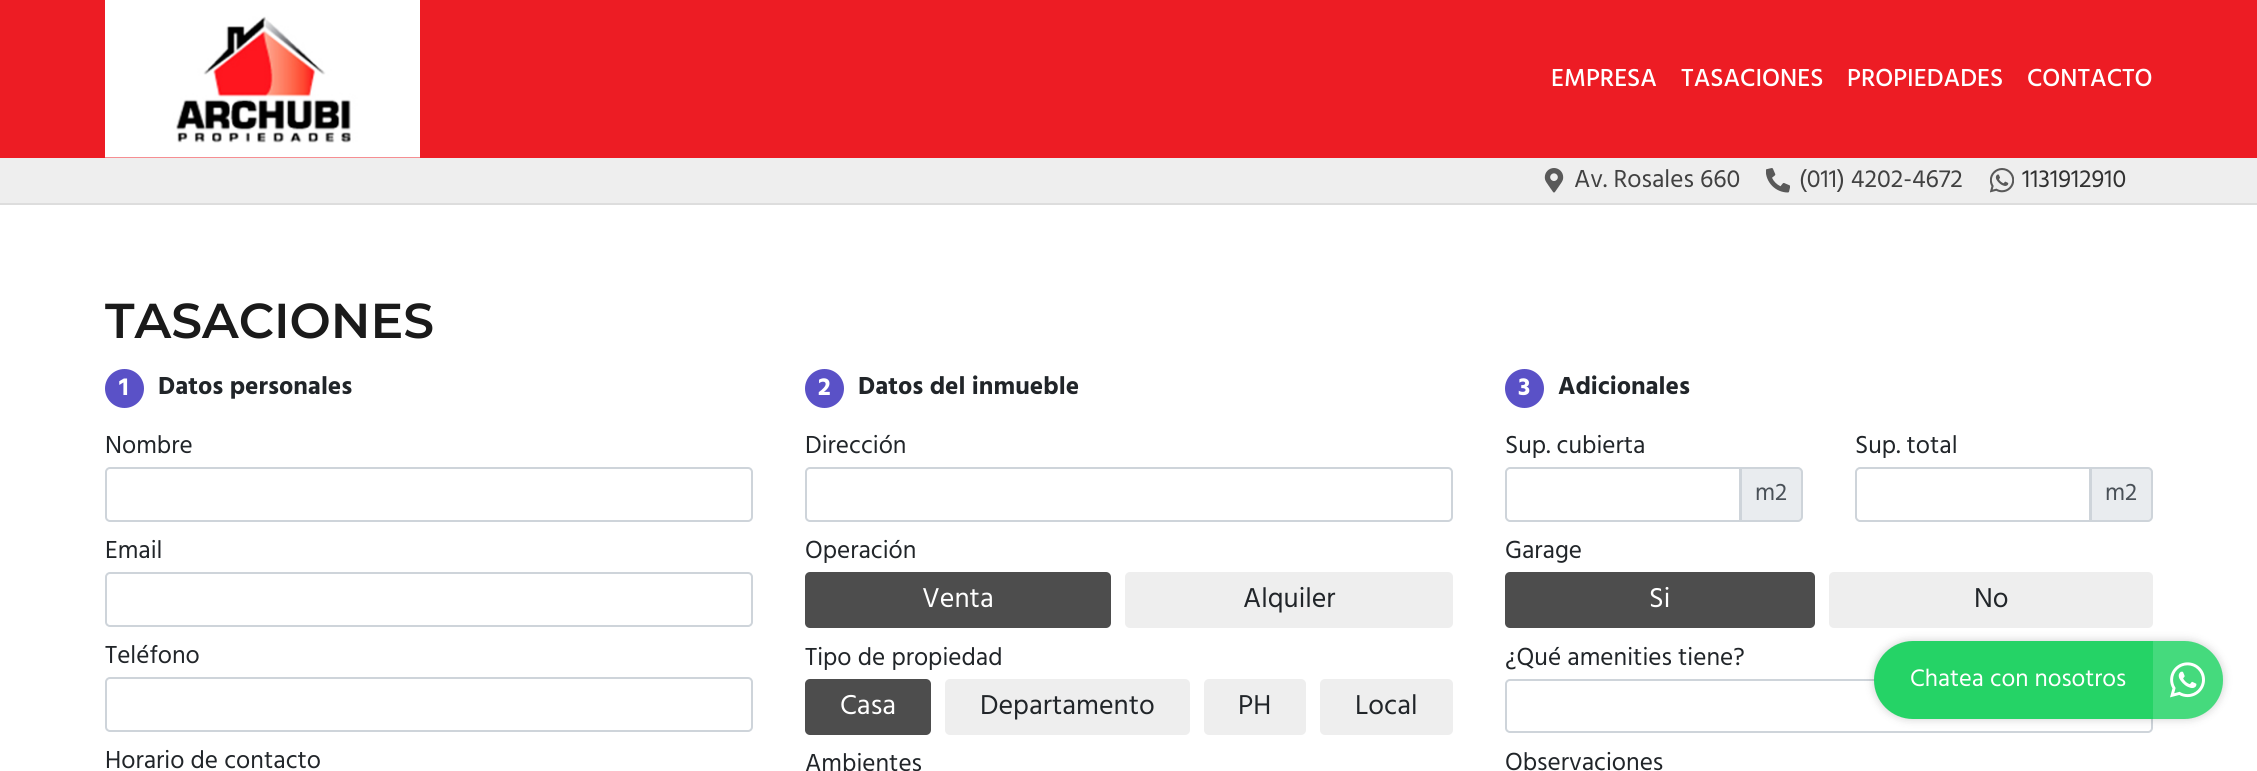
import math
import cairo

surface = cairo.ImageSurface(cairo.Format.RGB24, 2257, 771)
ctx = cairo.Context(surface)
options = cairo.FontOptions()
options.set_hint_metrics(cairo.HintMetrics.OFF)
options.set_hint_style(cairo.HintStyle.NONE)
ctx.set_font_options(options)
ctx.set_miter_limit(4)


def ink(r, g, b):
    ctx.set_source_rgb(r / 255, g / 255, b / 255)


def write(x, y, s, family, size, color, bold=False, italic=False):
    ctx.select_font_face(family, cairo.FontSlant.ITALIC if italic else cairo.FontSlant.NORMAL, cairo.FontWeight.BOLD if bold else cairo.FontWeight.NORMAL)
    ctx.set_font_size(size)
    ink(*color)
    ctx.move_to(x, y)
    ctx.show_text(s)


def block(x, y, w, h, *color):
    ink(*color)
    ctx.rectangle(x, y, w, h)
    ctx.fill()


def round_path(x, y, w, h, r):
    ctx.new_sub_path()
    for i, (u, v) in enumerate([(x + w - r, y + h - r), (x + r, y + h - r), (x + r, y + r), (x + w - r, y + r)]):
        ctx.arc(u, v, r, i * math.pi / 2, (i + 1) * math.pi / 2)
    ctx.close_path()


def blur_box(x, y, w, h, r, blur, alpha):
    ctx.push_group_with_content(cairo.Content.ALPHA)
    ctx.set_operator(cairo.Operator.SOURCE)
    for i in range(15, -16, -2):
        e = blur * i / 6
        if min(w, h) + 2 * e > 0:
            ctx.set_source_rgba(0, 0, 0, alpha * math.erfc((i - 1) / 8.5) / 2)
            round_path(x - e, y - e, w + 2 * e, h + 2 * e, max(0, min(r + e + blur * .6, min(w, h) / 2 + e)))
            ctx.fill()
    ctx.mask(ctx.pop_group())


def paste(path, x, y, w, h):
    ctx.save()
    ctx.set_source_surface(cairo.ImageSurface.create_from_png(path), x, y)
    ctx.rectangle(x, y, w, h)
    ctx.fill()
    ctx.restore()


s1 = dict(family="Hind Medium", size=25.25, color=(255, 255, 255))
s2 = dict(family="Hind", size=25.25, color=(65, 65, 65))
s3 = dict(family="Hind", size=25.25, color=(49, 49, 49))
s4 = dict(family="Montserrat SemiBold", size=49, color=(26, 26, 26))
s5 = dict(family="Hind", size=25.25, color=(255, 255, 255), bold=True)
s6 = dict(family="Hind", size=25.25, color=(33, 37, 41), bold=True)
s7 = dict(family="Hind", size=25.25, color=(33, 37, 41))
s8 = dict(family="Hind", size=28, color=(255, 255, 255))
s9 = dict(family="Hind", size=28, color=(33, 37, 41))
s10 = dict(family="Hind", size=24.5, color=(73, 80, 87))
s11 = dict(family="Hind", size=24.5, color=(255, 255, 255))

ink(255, 255, 255)
ctx.paint()
block(0, 0, 2257, 158, 237, 28, 36)
paste("pic1.png", 105, 0, 315, 158)
write(1551, 86, "EMPRESA", **s1)
write(1681, 86, "TASACIONES", **s1)
write(1847, 86, "PROPIEDADES", **s1)
write(2027, 86, "CONTACTO", **s1)
block(0, 158, 2257, 45, 238, 238, 238)
block(0, 203, 2257, 2, 221, 221, 221)
paste("pic2.png", 1544, 168, 20, 25)
write(1574, 187, "Av. Rosales 660", **s2)
paste("pic3.png", 1766, 168, 24, 25)
write(1799, 187, "(011) 4202-4672", **s2)
paste("pic4.png", 1990, 168, 24, 25)
write(2022, 187, "1131912910", **s3)
write(105, 338, "TASACIONES", **s4)
ink(90, 81, 199)
ctx.new_path()
ctx.arc(124.5, 388.5, 19.5, 0, 2 * math.pi)
ctx.fill()
write(119, 395, "1", **s5)
write(158, 394, "Datos personales", **s6)
write(105, 453, "Nombre", **s7)
round_path(106, 468, 646, 53, 4)
ink(206, 212, 218)
ctx.stroke()
write(105, 558, "Email", **s7)
round_path(106, 573, 646, 53, 4)
ink(206, 212, 218)
ctx.stroke()
write(105, 663, "Teléfono", **s7)
round_path(106, 678, 646, 53, 4)
ink(206, 212, 218)
ctx.stroke()
write(105, 768, "Horario de contacto", **s7)
ink(90, 81, 199)
ctx.new_path()
ctx.arc(824.5, 388.5, 19.5, 0, 2 * math.pi)
ctx.fill()
write(818, 395, "2", **s5)
write(858, 394, "Datos del inmueble", **s6)
write(805, 453, "Dirección", **s7)
round_path(806, 468, 646, 53, 4)
ink(206, 212, 218)
ctx.stroke()
write(805, 558, "Operación", **s7)
ink(77, 77, 77)
round_path(805, 572, 306, 56, 5)
ctx.fill()
write(922, 607, "Venta", **s8)
ink(238, 238, 238)
round_path(1125, 572, 328, 56, 5)
ctx.fill()
write(1243, 607, "Alquiler", **s9)
write(805, 665, "Tipo de propiedad", **s7)
ink(77, 77, 77)
round_path(805, 679, 126, 56, 5)
ctx.fill()
write(840, 714, "Casa", **s8)
ink(238, 238, 238)
round_path(945, 679, 245, 56, 5)
ctx.fill()
write(980, 714, "Departamento", **s9)
ink(238, 238, 238)
round_path(1204, 679, 102, 56, 5)
ctx.fill()
write(1238, 714, "PH", **s9)
ink(238, 238, 238)
round_path(1320, 679, 133, 56, 5)
ctx.fill()
write(1355, 714, "Local", **s9)
write(805, 771, "Ambientes", **s7)
ink(90, 81, 199)
ctx.new_path()
ctx.arc(1524.5, 388.5, 19.5, 0, 2 * math.pi)
ctx.fill()
write(1518, 395, "3", **s5)
write(1558, 394, "Adicionales", **s6)
write(1505, 453, "Sup. cubierta", **s7)
ink(233, 236, 239)
ctx.new_path()
ctx.move_to(1741, 468)
ctx.line_to(1798, 468)
ctx.curve_to(1800, 468, 1802, 470, 1802, 472)
ctx.line_to(1802, 517)
ctx.curve_to(1802, 519, 1800, 521, 1798, 521)
ctx.line_to(1741, 521)
ctx.close_path()
ctx.fill_preserve()
ink(206, 212, 218)
ctx.stroke()
ctx.new_path()
ctx.move_to(1510, 468)
ctx.line_to(1740, 468)
ctx.line_to(1740, 521)
ctx.line_to(1510, 521)
ctx.curve_to(1508, 521, 1506, 519, 1506, 517)
ctx.line_to(1506, 472)
ctx.curve_to(1506, 470, 1508, 468, 1510, 468)
ctx.close_path()
ctx.stroke()
write(1755, 500, "m2", **s10)
write(1855, 453, "Sup. total", **s7)
ink(233, 236, 239)
ctx.new_path()
ctx.move_to(2091, 468)
ctx.line_to(2148, 468)
ctx.curve_to(2150, 468, 2152, 470, 2152, 472)
ctx.line_to(2152, 517)
ctx.curve_to(2152, 519, 2150, 521, 2148, 521)
ctx.line_to(2091, 521)
ctx.close_path()
ctx.fill_preserve()
ink(206, 212, 218)
ctx.stroke()
ctx.new_path()
ctx.move_to(1860, 468)
ctx.line_to(2090, 468)
ctx.line_to(2090, 521)
ctx.line_to(1860, 521)
ctx.curve_to(1858, 521, 1856, 519, 1856, 517)
ctx.line_to(1856, 472)
ctx.curve_to(1856, 470, 1858, 468, 1860, 468)
ctx.close_path()
ctx.stroke()
write(2105, 500, "m2", **s10)
write(1505, 558, "Garage", **s7)
ink(77, 77, 77)
round_path(1505, 572, 310, 56, 5)
ctx.fill()
write(1649, 607, "Si", **s8)
ink(238, 238, 238)
round_path(1829, 572, 324, 56, 5)
ctx.fill()
write(1974, 607, "No", **s9)
write(1505, 665, "¿Qué amenities tiene?", **s7)
round_path(1506, 680, 646, 52, 4)
ink(206, 212, 218)
ctx.stroke()
write(1505, 770, "Observaciones", **s7)
ink(0, 0, 0)
blur_box(1874, 641, 349, 78, 39, 4.5, 0.2)
ink(37, 211, 102)
round_path(1874, 641, 349, 78, 39)
ctx.fill()
write(1910, 686, "Chatea con nosotros", **s11)
ctx.set_source_rgba(1, 1, 1, 0.15)
ctx.new_path()
ctx.move_to(2153, 641)
ctx.line_to(2184, 641)
ctx.curve_to(2205.5, 641, 2223, 658.5, 2223, 680)
ctx.curve_to(2223, 701.5, 2205.5, 719, 2184, 719)
ctx.line_to(2153, 719)
ctx.close_path()
ctx.fill()
paste("pic5.png", 2170, 662, 35, 36)
surface.write_to_png("screenshot.png")
